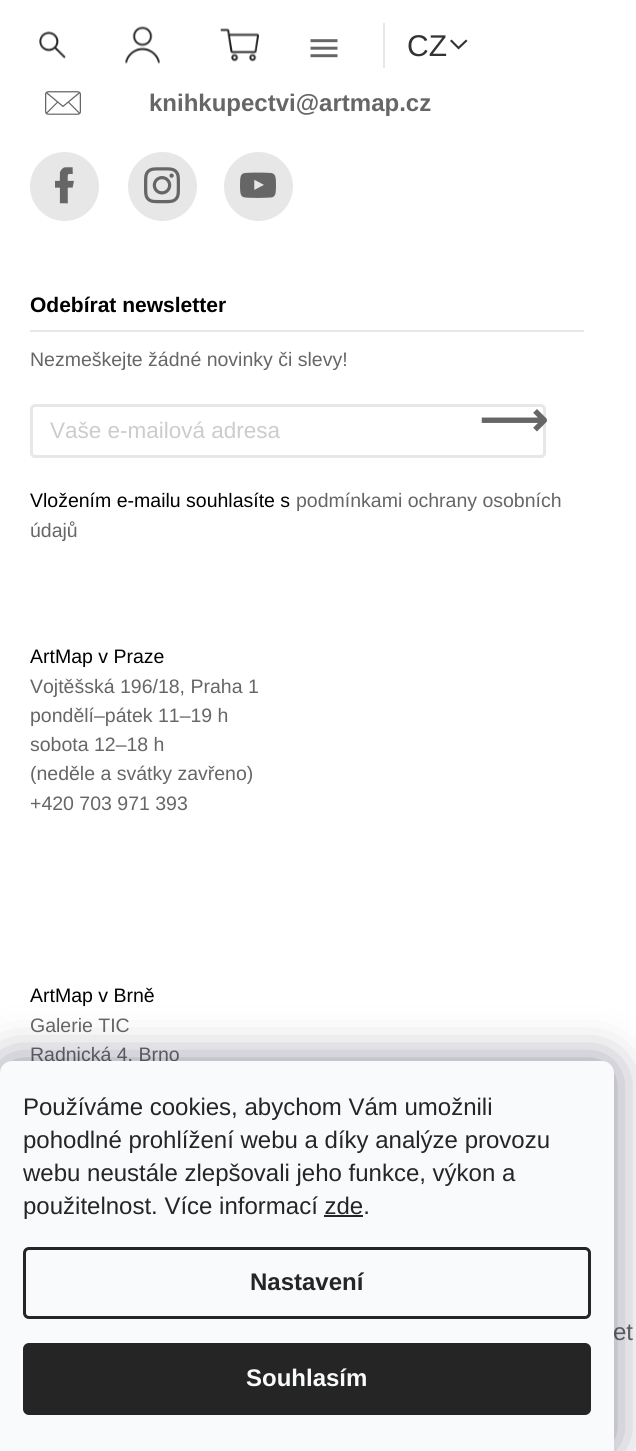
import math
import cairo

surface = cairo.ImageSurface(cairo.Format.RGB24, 636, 1451)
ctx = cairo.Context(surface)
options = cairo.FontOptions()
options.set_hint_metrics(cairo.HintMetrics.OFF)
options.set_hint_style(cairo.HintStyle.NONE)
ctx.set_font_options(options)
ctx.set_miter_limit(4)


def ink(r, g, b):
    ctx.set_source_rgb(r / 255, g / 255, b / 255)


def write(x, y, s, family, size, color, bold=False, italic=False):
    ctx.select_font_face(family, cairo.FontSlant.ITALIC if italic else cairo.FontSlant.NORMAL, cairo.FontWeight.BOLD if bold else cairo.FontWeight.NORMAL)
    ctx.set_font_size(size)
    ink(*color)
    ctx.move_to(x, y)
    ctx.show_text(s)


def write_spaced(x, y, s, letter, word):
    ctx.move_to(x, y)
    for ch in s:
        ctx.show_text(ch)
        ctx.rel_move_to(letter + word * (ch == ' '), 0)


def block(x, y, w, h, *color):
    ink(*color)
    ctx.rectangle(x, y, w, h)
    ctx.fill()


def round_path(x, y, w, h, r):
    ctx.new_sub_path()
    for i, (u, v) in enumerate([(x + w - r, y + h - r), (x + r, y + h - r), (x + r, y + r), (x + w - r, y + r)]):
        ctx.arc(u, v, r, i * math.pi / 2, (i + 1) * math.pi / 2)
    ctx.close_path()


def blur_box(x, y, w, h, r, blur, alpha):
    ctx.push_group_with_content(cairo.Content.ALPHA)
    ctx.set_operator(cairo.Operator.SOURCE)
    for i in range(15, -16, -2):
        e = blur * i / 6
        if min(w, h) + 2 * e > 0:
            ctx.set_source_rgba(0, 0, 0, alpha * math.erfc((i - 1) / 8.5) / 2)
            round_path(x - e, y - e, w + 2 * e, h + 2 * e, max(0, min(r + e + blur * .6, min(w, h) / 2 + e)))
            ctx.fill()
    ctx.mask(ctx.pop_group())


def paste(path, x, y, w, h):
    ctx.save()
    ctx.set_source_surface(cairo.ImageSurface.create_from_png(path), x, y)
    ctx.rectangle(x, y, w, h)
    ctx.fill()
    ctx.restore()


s1 = dict(family="Liberation Sans", size=30, color=(51, 51, 51))
s2 = dict(family="Liberation Sans", size=24, color=(102, 102, 102), bold=True)
s3 = dict(family="Liberation Sans", size=21, color=(0, 0, 0), bold=True)
s4 = dict(family="Liberation Sans", size=19.5, color=(102, 102, 102))
s5 = dict(family="Liberation Sans", size=22.5, color=(204, 204, 204))
s6 = dict(family="DejaVu Sans", size=48, color=(102, 102, 102), bold=True)
s7 = dict(family="Liberation Sans", size=19.5, color=(0, 0, 0))
s8 = dict(family="Liberation Sans", size=24, color=(37, 37, 37))
s9 = dict(family="Liberation Sans", size=24, color=(37, 37, 37), bold=True)
s10 = dict(family="Liberation Sans", size=24, color=(248, 250, 251), bold=True)

ink(255, 255, 255)
ctx.paint()
paste("pic1.png", 39, 31, 27, 28)
paste("pic2.png", 125, 26, 35, 38)
paste("pic3.png", 220, 28, 39, 34)
paste("pic4.png", 310, 39, 28, 19)
block(383, 23, 2, 45, 231, 231, 231)
write(407, 56, "CZ", **s1)
ctx.new_path()
ctx.move_to(450, 41)
ctx.line_to(451.5, 39.5)
ctx.line_to(458.5, 46.5)
ctx.line_to(466, 39.5)
ctx.line_to(467.5, 41)
ctx.line_to(458.5, 49.5)
ctx.close_path()
ctx.fill()
paste("pic5.png", 45, 91, 36, 24)
write(149, 111, "knihkupectvi@artmap.cz", **s2)
ink(231, 231, 231)
ctx.new_path()
ctx.arc(64.5, 186.5, 34.5, 0, 2 * math.pi)
ctx.fill()
paste("pic6.png", 55, 167, 19, 37)
ctx.arc(162.5, 186.5, 34.5, 0, 2 * math.pi)
ctx.fill()
paste("pic7.png", 144, 167, 36, 37)
ctx.arc(258.5, 186.5, 34.5, 0, 2 * math.pi)
ctx.fill()
paste("pic8.png", 240, 172, 36, 26)
block(30, 330, 554, 2, 231, 231, 231)
write(30, 312, "Odebírat newsletter", **s3)
write(30, 366, "Nezmeškejte žádné novinky či slevy!", **s4)
round_path(31.5, 405.5, 513, 51, 3.5)
ink(231, 231, 231)
ctx.set_line_width(3)
ctx.stroke()
write(50, 438, "Vaše e-mailová adresa", **s5)
write(479, 436, "⟶", **s6)
write(30, 507, "Vložením e-mailu souhlasíte s", **s7)
write(296, 507, "podmínkami ochrany osobních", **s4)
write(30, 537, "údajů", **s4)
write(30, 663, "ArtMap v Praze", **s7)
write(30, 693, "Vojtěšská 196/18, Praha 1", **s4)
write(30, 722, "pondělí–pátek 11–19 h", **s4)
write(30, 751, "sobota 12–18 h", **s4)
write(30, 780, "(neděle a svátky zavřeno)", **s4)
write(30, 810, "+420 703 971 393", **s4)
write(30, 1002, "ArtMap v Brně", **s7)
write(30, 1032, "Galerie TIC", **s4)
write(30, 1061, "Radnická 4, Brno", **s4)
ctx.set_font_size(24)
write_spaced(613, 1340, "et", 0, -1)
ink(27, 25, 57)
blur_box(0, 1061, 614, 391, 12, 22.5, 0.5)
ink(248, 250, 251)
ctx.new_path()
ctx.move_to(12, 1061)
ctx.line_to(602, 1061)
ctx.curve_to(608.5, 1061, 614, 1066.5, 614, 1073)
ctx.line_to(614, 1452)
ctx.line_to(0, 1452)
ctx.line_to(0, 1073)
ctx.curve_to(0, 1066.5, 5.5, 1061, 12, 1061)
ctx.close_path()
ctx.fill()
write(23, 1115, "Používáme cookies, abychom Vám umožnili", **s8)
write(23, 1148, "pohodlné prohlížení webu a díky analýze provozu", **s8)
write(23, 1181, "webu neustále zlepšovali jeho funkce, výkon a", **s8)
write(23, 1214, "použitelnost. Více informací zde.", **s8)
block(324, 1215, 39, 2, 37, 37, 37)
round_path(24.5, 1248.5, 565, 69, 4.5)
ctx.stroke()
write(250, 1290, "Nastavení", **s9)
round_path(23, 1343, 568, 72, 6)
ctx.fill()
write(246, 1386, "Souhlasím", **s10)
surface.write_to_png("screenshot.png")
